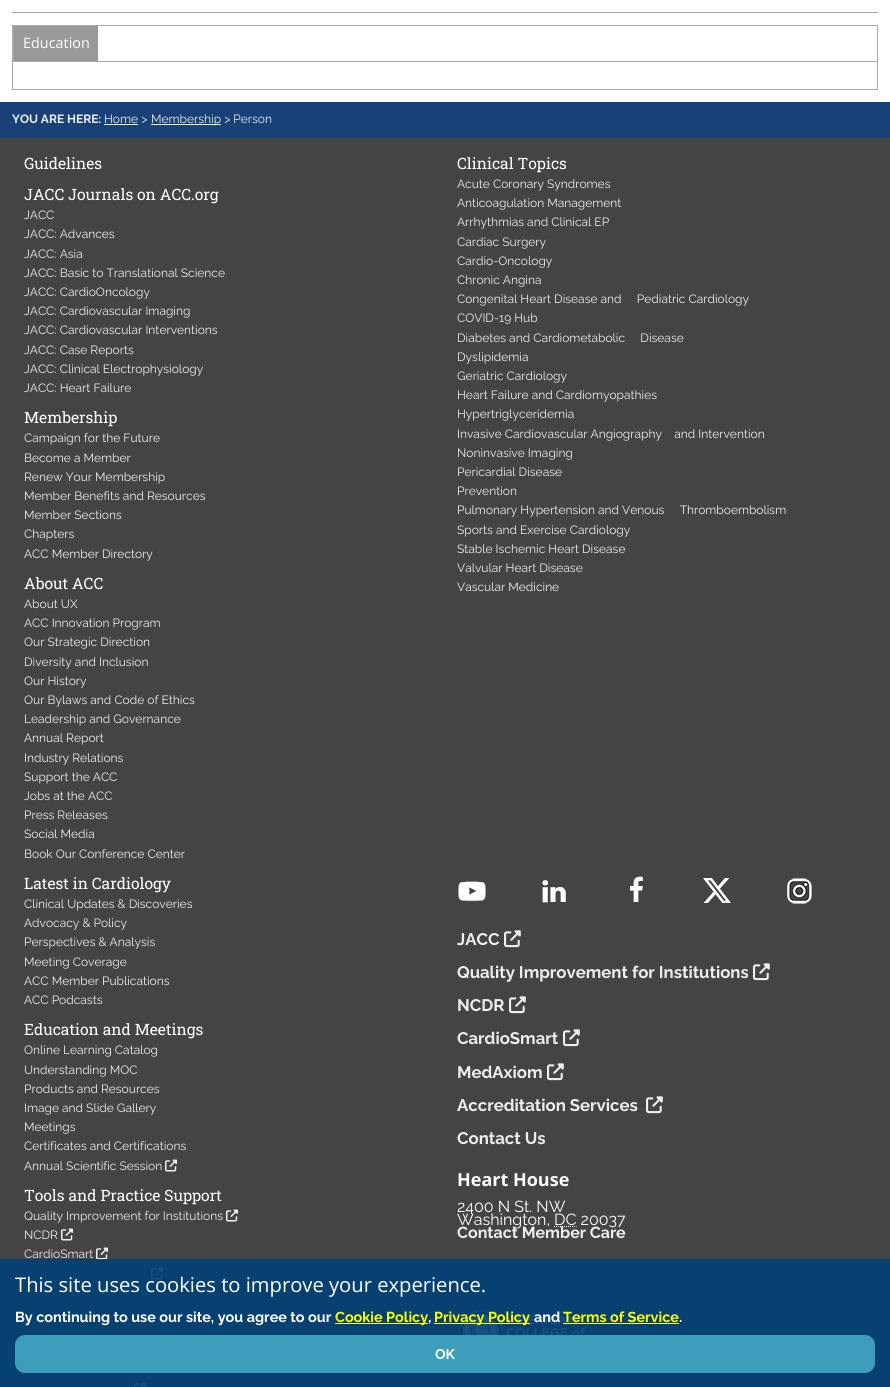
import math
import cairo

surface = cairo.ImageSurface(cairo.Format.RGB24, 890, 1387)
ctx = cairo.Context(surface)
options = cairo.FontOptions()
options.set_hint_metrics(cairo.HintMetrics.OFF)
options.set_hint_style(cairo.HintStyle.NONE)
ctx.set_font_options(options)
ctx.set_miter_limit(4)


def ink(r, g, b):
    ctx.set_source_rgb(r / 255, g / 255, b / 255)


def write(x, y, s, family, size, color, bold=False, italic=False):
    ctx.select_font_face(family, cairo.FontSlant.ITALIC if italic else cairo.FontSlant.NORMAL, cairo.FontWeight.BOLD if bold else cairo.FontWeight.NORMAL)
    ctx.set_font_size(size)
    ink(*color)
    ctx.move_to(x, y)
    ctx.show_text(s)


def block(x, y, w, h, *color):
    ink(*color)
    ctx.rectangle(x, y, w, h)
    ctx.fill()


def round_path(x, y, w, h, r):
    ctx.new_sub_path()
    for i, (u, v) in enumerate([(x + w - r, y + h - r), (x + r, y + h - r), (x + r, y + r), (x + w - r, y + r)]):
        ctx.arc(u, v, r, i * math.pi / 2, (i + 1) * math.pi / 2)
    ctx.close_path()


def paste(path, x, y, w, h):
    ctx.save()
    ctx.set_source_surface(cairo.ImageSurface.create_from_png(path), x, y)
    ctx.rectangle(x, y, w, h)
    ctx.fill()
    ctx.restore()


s1 = dict(family="Open Sans", size=14.4, color=(255, 255, 255))
s2 = dict(family="Raleway", size=12, color=(238, 238, 238), bold=True)
s3 = dict(family="Raleway", size=12, color=(238, 238, 238))
s4 = dict(family="Roboto Slab", size=15.6, color=(255, 255, 255))
s5 = dict(family="Raleway", size=16.75, color=(238, 238, 238), bold=True)
s6 = dict(family="Open Sans", size=18, color=(255, 255, 255), bold=True)
s7 = dict(family="Raleway", size=16, color=(255, 255, 255))
s8 = dict(family="Raleway", size=16, color=(238, 238, 238), bold=True)
s9 = dict(family="Open Sans", size=20.2, color=(255, 255, 255))
s10 = dict(family="Raleway", size=14.4, color=(255, 255, 255), bold=True)
s11 = dict(family="Raleway", size=14.4, color=(255, 255, 0), bold=True)
s12 = dict(family="Raleway", size=14, color=(255, 255, 255), bold=True)

ink(255, 255, 255)
ctx.paint()
block(12, 12, 866, 1, 168, 168, 168)
block(877, 25, 1, 65, 168, 168, 168)
block(12, 89, 866, 1, 168, 168, 168)
block(12, 25, 1, 65, 168, 168, 168)
block(13, 25, 864, 1, 168, 168, 168)
block(13, 61, 864, 1, 168, 168, 168)
block(14, 26, 84, 35, 153, 153, 153)
block(13, 26, 1, 35, 168, 168, 168)
write(23, 48, "Education", **s1)
block(0, 102, 890, 36, 23, 65, 119)
write(12, 123, "YOU ARE HERE:", **s2)
write(104, 123, "Home >", **s3)
block(104, 124, 34, 1, 238, 238, 238)
block(151, 124, 70, 1, 238, 238, 238)
write(151, 123, "Membership > Person", **s3)
block(0, 138, 890, 1249, 68, 68, 68)
write(24, 169, "Guidelines", **s4)
write(24, 200, "JACC Journals on ACC.org", **s4)
write(24, 219, "JACC", **s3)
write(24, 238, "JACC: Advances", **s3)
write(24, 258, "JACC: Asia", **s3)
write(24, 277, "JACC: Basic to Translational Science", **s3)
write(24, 296, "JACC: CardioOncology", **s3)
write(24, 315, "JACC: Cardiovascular Imaging", **s3)
write(24, 334, "JACC: Cardiovascular Interventions", **s3)
write(24, 354, "JACC: Case Reports", **s3)
write(24, 373, "JACC: Clinical Electrophysiology", **s3)
write(24, 392, "JACC: Heart Failure", **s3)
write(24, 423, "Membership", **s4)
write(24, 442, "Campaign for the Future", **s3)
write(24, 462, "Become a Member", **s3)
write(24, 481, "Renew Your Membership", **s3)
write(24, 500, "Member Benefits and Resources", **s3)
write(24, 519, "Member Sections", **s3)
write(24, 538, "Chapters", **s3)
write(24, 558, "ACC Member Directory", **s3)
write(24, 589, "About ACC", **s4)
write(24, 608, "About UX", **s3)
write(24, 627, "ACC Innovation Program", **s3)
write(24, 646, "Our Strategic Direction", **s3)
write(24, 666, "Diversity and Inclusion", **s3)
write(24, 685, "Our History", **s3)
write(24, 704, "Our Bylaws and Code of Ethics", **s3)
write(24, 723, "Leadership and Governance", **s3)
write(24, 742, "Annual Report", **s3)
write(24, 762, "Industry Relations", **s3)
write(24, 781, "Support the ACC", **s3)
write(24, 800, "Jobs at the ACC", **s3)
write(24, 819, "Press Releases", **s3)
write(24, 838, "Social Media", **s3)
write(24, 858, "Book Our Conference Center", **s3)
write(457, 169, "Clinical Topics", **s4)
write(457, 188, "Acute Coronary Syndromes", **s3)
write(457, 207, "Anticoagulation Management", **s3)
write(457, 226, "Arrhythmias and Clinical EP", **s3)
write(457, 246, "Cardiac Surgery", **s3)
write(457, 265, "Cardio-Oncology", **s3)
write(457, 284, "Chronic Angina", **s3)
write(457, 303, "Congenital Heart Disease and     Pediatric Cardiology", **s3)
write(457, 322, "COVID-19 Hub", **s3)
write(457, 342, "Diabetes and Cardiometabolic     Disease", **s3)
write(457, 361, "Dyslipidemia", **s3)
write(457, 380, "Geriatric Cardiology", **s3)
write(457, 399, "Heart Failure and Cardiomyopathies", **s3)
write(457, 418, "Hypertriglyceridemia", **s3)
write(457, 438, "Invasive Cardiovascular Angiography    and Intervention", **s3)
write(457, 457, "Noninvasive Imaging", **s3)
write(457, 476, "Pericardial Disease", **s3)
write(457, 495, "Prevention", **s3)
write(457, 514, "Pulmonary Hypertension and Venous     Thromboembolism", **s3)
write(457, 534, "Sports and Exercise Cardiology", **s3)
write(457, 553, "Stable Ischemic Heart Disease", **s3)
write(457, 572, "Valvular Heart Disease", **s3)
write(457, 591, "Vascular Medicine", **s3)
write(24, 889, "Latest in Cardiology", **s4)
write(24, 908, "Clinical Updates & Discoveries", **s3)
write(24, 927, "Advocacy & Policy", **s3)
write(24, 946, "Perspectives & Analysis", **s3)
write(24, 966, "Meeting Coverage", **s3)
write(24, 985, "ACC Member Publications", **s3)
write(24, 1004, "ACC Podcasts", **s3)
write(24, 1035, "Education and Meetings", **s4)
write(24, 1054, "Online Learning Catalog", **s3)
write(24, 1074, "Understanding MOC", **s3)
write(24, 1093, "Products and Resources", **s3)
write(24, 1112, "Image and Slide Gallery", **s3)
write(24, 1131, "Meetings", **s3)
write(24, 1150, "Certificates and Certifications", **s3)
write(24, 1170, "Annual Scientific Session", **s3)
paste("pic1.png", 165, 1159, 12, 13)
write(24, 1201, "Tools and Practice Support", **s4)
write(24, 1220, "Quality Improvement for Institutions", **s3)
paste("pic1.png", 226, 1209, 12, 13)
write(24, 1239, "NCDR", **s3)
paste("pic1.png", 61, 1228, 12, 13)
write(24, 1258, "CardioSmart", **s3)
paste("pic1.png", 96, 1247, 12, 13)
paste("pic1.png", 151, 1267, 12, 13)
paste("pic2.png", 134, 1382, 12, 5)
paste("pic3.png", 458, 881, 28, 20)
paste("pic4.png", 542, 880, 24, 23)
paste("pic5.png", 630, 876, 13, 26)
paste("pic6.png", 703, 878, 28, 25)
paste("pic7.png", 787, 878, 25, 26)
write(457, 945, "JACC", **s5)
paste("pic8.png", 504, 930, 17, 18)
write(457, 978, "Quality Improvement for Institutions", **s5)
paste("pic8.png", 753, 963, 17, 18)
write(457, 1011, "NCDR", **s5)
paste("pic8.png", 509, 996, 17, 18)
write(457, 1044, "CardioSmart", **s5)
paste("pic8.png", 563, 1029, 17, 18)
write(457, 1078, "MedAxiom", **s5)
paste("pic8.png", 547, 1063, 17, 18)
write(457, 1111, "Accreditation Services", **s5)
paste("pic8.png", 646, 1096, 17, 18)
write(457, 1144, "Contact Us", **s5)
write(457, 1186, "Heart House", **s6)
write(457, 1212, "2400 N St. NW", **s7)
write(457, 1225, "Washington, DC 20037", **s7)
ctx.new_path()
ctx.move_to(554, 1226.5)
ctx.line_to(576.5, 1226.5)
ctx.set_line_width(1)
ctx.set_dash([1, 1])
ctx.stroke()
write(457, 1238, "Contact Member Care", **s8)
paste("pic9.png", 458, 1310, 127, 25)
ctx.set_source_rgba(0, 0.255, 0.463, 0.9)
ctx.rectangle(0, 1259, 890, 128)
ctx.fill()
write(15, 1292, "This site uses cookies to improve your experience.", **s9)
write(15, 1322, "By continuing to use our site, you agree to our", **s10)
block(335, 1323, 93, 1, 255, 255, 0)
write(335, 1322, "Cookie Policy", **s11)
write(428, 1322, ",", **s10)
block(434, 1323, 96, 1, 255, 255, 0)
write(434, 1322, "Privacy Policy", **s11)
write(534, 1322, "and", **s10)
write(563, 1322, "Terms of Service", **s11)
block(563, 1323, 116, 1, 255, 255, 0)
write(679, 1322, ".", **s10)
ink(60, 158, 186)
round_path(15, 1335, 860, 38, 10)
ctx.fill()
write(435, 1359, "OK", **s12)
surface.write_to_png("screenshot.png")
